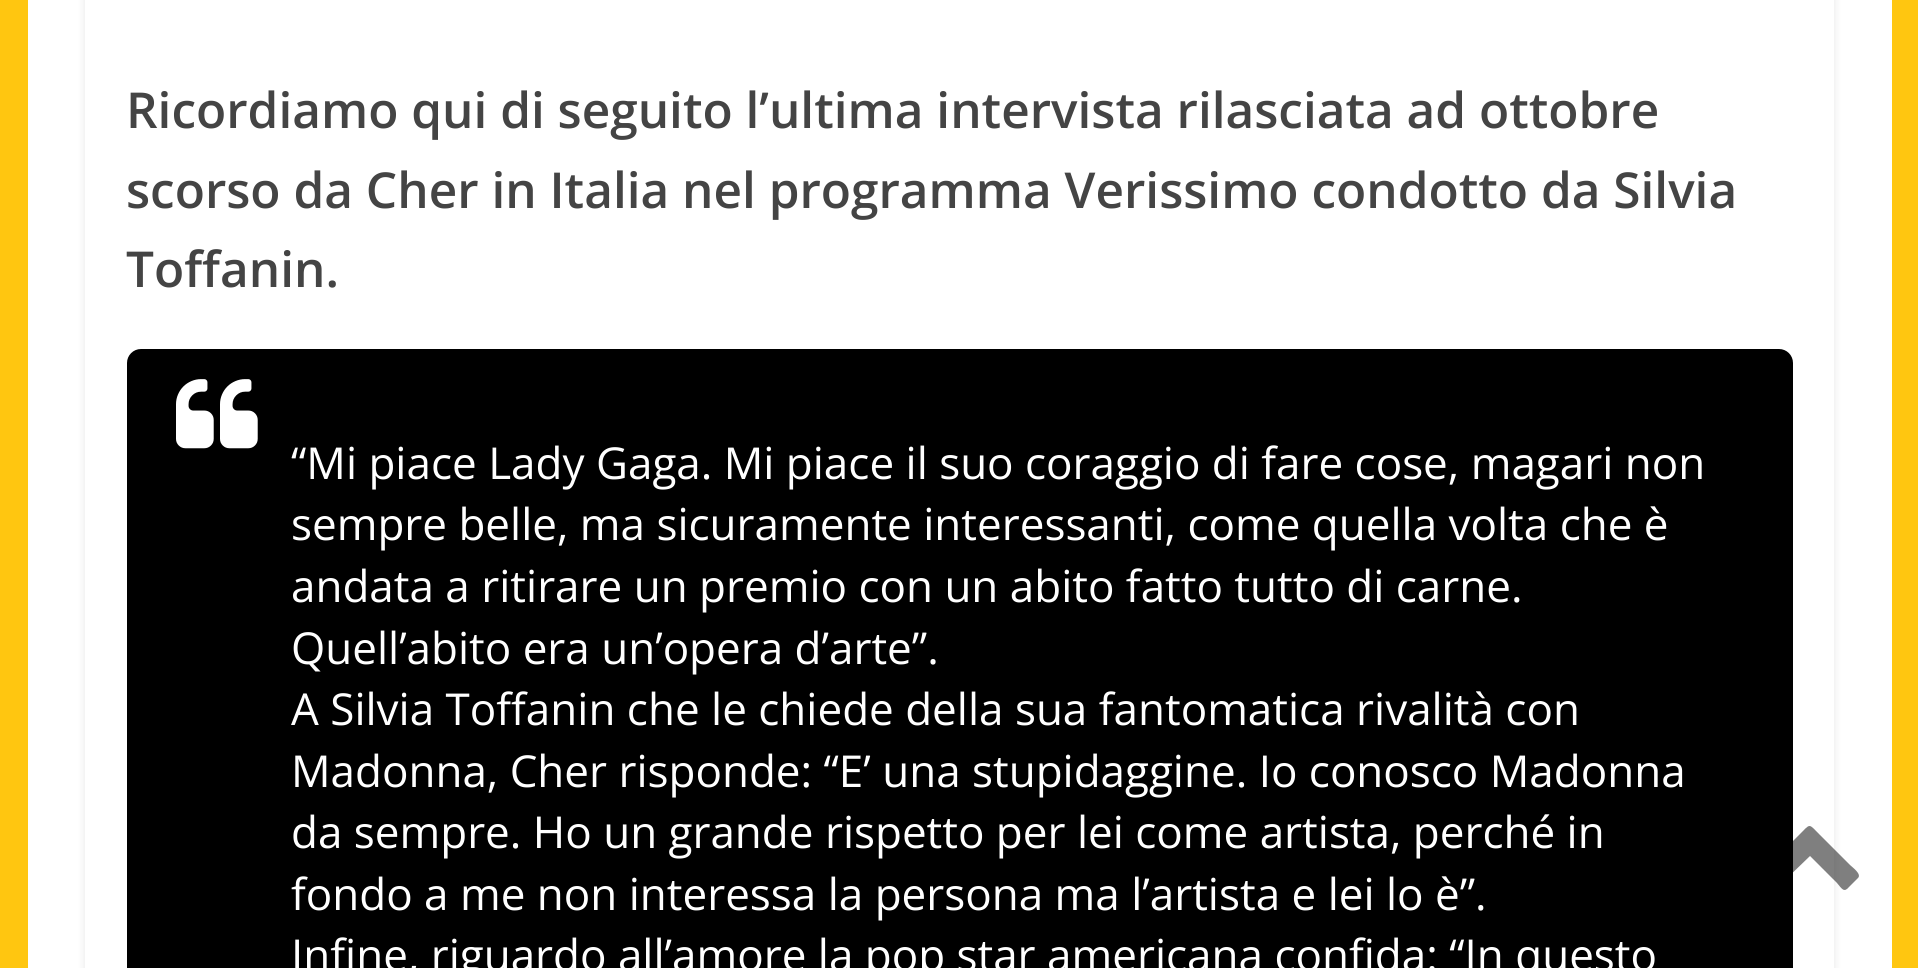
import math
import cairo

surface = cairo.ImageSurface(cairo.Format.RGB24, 1918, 968)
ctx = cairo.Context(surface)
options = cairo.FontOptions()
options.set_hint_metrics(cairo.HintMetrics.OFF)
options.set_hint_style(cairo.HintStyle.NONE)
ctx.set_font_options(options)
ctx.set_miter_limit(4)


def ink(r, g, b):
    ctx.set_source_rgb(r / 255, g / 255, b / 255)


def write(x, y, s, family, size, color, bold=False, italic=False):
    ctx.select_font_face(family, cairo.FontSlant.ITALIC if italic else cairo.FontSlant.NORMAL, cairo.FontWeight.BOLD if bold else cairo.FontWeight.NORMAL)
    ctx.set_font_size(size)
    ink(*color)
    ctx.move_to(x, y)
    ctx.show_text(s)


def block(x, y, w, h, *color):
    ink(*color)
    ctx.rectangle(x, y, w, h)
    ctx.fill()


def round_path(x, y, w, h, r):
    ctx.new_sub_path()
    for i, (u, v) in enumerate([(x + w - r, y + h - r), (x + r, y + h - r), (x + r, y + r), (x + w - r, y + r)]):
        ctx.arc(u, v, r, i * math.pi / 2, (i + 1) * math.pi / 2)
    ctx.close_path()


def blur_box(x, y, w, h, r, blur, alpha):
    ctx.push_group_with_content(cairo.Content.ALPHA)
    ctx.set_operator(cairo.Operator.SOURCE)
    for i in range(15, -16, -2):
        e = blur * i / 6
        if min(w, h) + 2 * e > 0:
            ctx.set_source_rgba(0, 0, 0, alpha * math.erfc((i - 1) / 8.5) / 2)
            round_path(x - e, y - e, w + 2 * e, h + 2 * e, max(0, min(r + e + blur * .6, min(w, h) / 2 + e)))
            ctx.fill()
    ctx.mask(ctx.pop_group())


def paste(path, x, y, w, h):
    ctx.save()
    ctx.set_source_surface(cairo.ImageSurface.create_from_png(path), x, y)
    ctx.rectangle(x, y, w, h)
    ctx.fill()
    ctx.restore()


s1 = dict(family="Open Sans SemiBold", size=49.5, color=(68, 68, 68))
s2 = dict(family="Open Sans", size=44, color=(255, 255, 255))

ink(255, 198, 16)
ctx.paint()
block(28, 0, 1864, 968, 255, 255, 255)
ctx.save()
ctx.set_fill_rule(cairo.FillRule.EVEN_ODD)
ctx.new_path()
ctx.move_to(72, 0)
ctx.line_to(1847, 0)
ctx.line_to(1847, 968)
ctx.line_to(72, 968)
ctx.close_path()
ctx.move_to(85, -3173)
ctx.line_to(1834, -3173)
ctx.line_to(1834, 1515)
ctx.line_to(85, 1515)
ctx.close_path()
ctx.clip()
ink(0, 0, 0)
blur_box(85, -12, 1749, 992, 0, 4, 0.1)
ctx.restore()
write(126, 128, "Ricordiamo qui di seguito l’ultima intervista rilasciata ad ottobre", **s1)
write(126, 208, "scorso da Cher in Italia nel programma Verissimo condotto da Silvia", **s1)
write(126, 287, "Toffanin.", **s1)
ink(0, 0, 0)
round_path(127, 349, 1666, 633, 14)
ctx.fill()
paste("pic1.png", 176, 379, 82, 70)
write(291, 479, "“Mi piace Lady Gaga. Mi piace il suo coraggio di fare cose, magari non", **s2)
write(291, 540, "sempre belle, ma sicuramente interessanti, come quella volta che è", **s2)
write(291, 602, "andata a ritirare un premio con un abito fatto tutto di carne.", **s2)
write(291, 664, "Quell’abito era un’opera d’arte”.", **s2)
write(291, 725, "A Silvia Toffanin che le chiede della sua fantomatica rivalità con", **s2)
write(291, 787, "Madonna, Cher risponde: “E’ una stupidaggine. Io conosco Madonna", **s2)
write(291, 848, "da sempre. Ho un grande rispetto per lei come artista, perché in", **s2)
write(291, 910, "fondo a me non interessa la persona ma l’artista e lei lo è”.", **s2)
write(291, 971, "Infine, riguardo all’amore la pop star americana confida: “In questo", **s2)
ctx.set_source_rgba(0, 0, 0, 0.5)
ctx.new_path()
ctx.move_to(1858, 878)
ctx.line_to(1849, 887)
ctx.curve_to(1844, 893, 1842, 889, 1837, 883)
ctx.line_to(1810, 856)
ctx.line_to(1782, 883)
ctx.curve_to(1772, 894, 1774, 891, 1763, 880)
ctx.curve_to(1756, 874, 1763, 871, 1769, 865)
ctx.line_to(1799, 835)
ctx.curve_to(1811, 823, 1808, 823, 1820, 835)
ctx.line_to(1850, 865)
ctx.curve_to(1852, 867, 1862, 874, 1858, 878)
ctx.close_path()
ctx.fill()
surface.write_to_png("screenshot.png")
